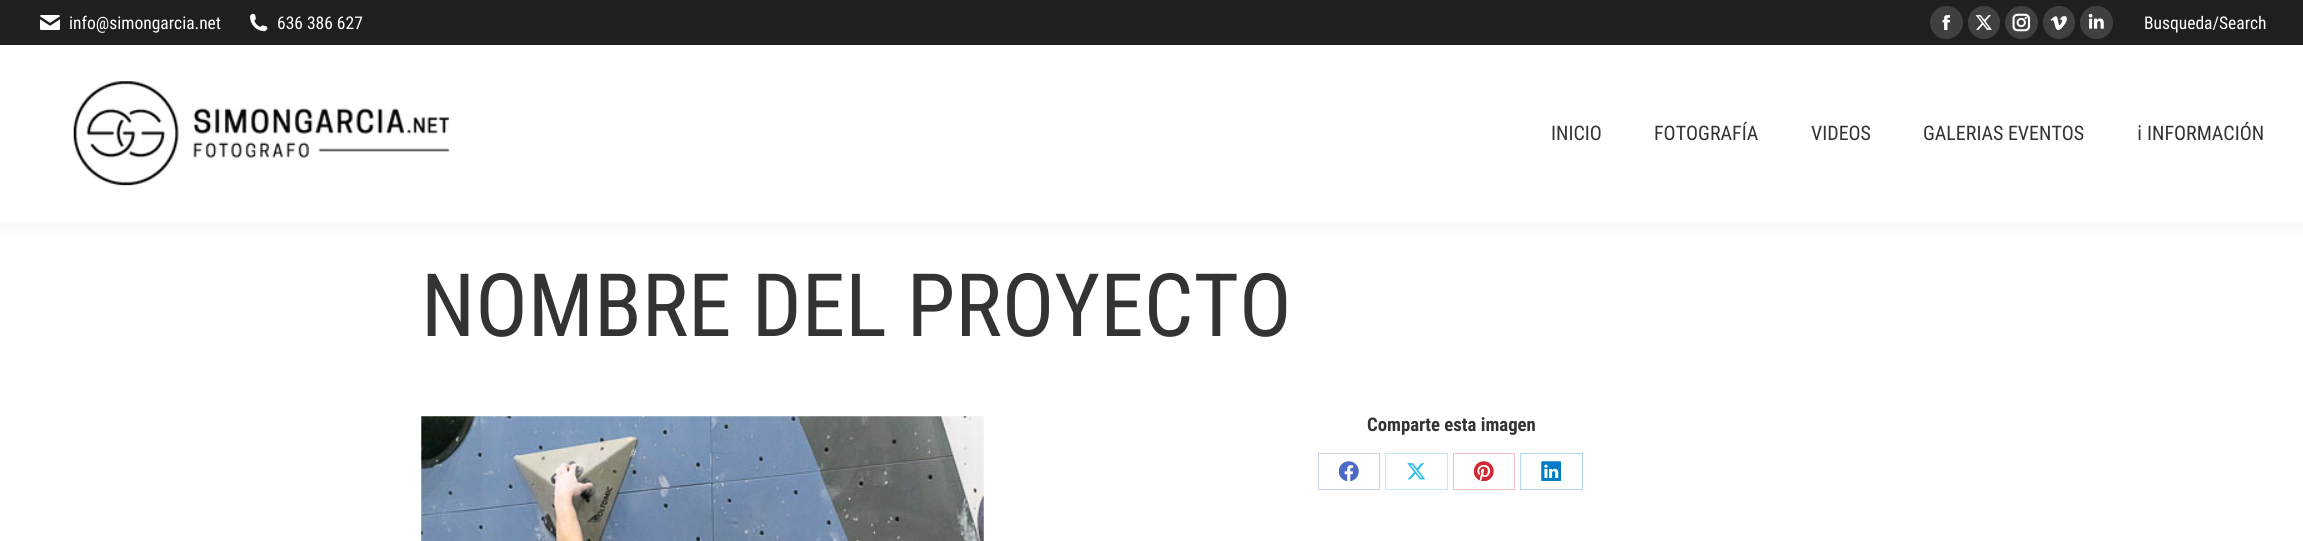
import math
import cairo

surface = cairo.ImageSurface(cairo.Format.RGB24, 2303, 541)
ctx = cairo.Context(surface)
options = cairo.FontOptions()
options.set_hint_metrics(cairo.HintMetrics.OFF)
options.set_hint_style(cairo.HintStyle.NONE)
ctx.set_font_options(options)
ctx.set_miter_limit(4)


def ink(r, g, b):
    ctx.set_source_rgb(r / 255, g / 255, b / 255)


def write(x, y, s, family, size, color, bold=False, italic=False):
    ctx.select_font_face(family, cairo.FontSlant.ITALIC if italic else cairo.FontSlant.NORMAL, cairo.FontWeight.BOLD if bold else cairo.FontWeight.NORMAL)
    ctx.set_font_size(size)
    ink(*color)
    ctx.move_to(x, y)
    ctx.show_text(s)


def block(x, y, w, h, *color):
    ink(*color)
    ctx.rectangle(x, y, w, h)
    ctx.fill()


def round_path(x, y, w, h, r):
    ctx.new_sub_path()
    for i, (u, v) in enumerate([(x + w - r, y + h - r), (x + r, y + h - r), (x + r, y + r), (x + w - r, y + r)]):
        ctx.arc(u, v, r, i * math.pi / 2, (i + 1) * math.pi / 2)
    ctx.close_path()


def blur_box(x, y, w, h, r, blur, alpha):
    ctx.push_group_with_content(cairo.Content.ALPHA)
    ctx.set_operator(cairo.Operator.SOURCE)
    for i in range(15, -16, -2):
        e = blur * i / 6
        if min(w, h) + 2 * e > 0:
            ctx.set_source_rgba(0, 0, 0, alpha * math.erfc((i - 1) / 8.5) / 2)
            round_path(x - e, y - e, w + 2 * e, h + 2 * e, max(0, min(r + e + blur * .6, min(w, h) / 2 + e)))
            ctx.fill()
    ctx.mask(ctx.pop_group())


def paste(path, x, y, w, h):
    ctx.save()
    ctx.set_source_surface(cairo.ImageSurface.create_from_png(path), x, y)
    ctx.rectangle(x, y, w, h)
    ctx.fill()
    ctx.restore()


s1 = dict(family="Roboto Condensed", size=17.5, color=(255, 255, 255))
s2 = dict(family="Roboto Condensed", size=20, color=(51, 51, 51))
s3 = dict(family="Noto Sans", size=20, color=(51, 51, 51))
s4 = dict(family="Roboto Condensed", size=87.5, color=(51, 51, 51))
s5 = dict(family="Roboto Condensed", size=18.75, color=(51, 51, 51), bold=True)

ink(255, 255, 255)
ctx.paint()
ink(0, 0, 0)
blur_box(-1, -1, 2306, 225, 0, 9.5, 0.07)
block(0, 45, 2303, 178, 255, 255, 255)
block(0, 0, 2303, 45, 31, 31, 31)
paste("pic1.png", 40, 15, 20, 15)
write(69, 29, "info@simongarcia.net", **s1)
paste("pic2.png", 250, 13, 18, 19)
write(277, 29, "636 386 627", **s1)
ink(64, 64, 64)
ctx.new_path()
ctx.arc(1946.5, 22.5, 16.5, 0, 2 * math.pi)
ctx.fill()
paste("pic3.png", 1942, 15, 8, 15)
round_path(1968, 6, 32, 33, 16)
ctx.fill()
paste("pic4.png", 1975, 15, 17, 15)
ctx.arc(2021.5, 22.5, 16.5, 0, 2 * math.pi)
ctx.fill()
paste("pic5.png", 2012, 13, 18, 19)
round_path(2043, 6, 32, 33, 16)
ctx.fill()
paste("pic6.png", 2050, 16, 17, 15)
ctx.arc(2096.5, 22.5, 16.5, 0, 2 * math.pi)
ctx.fill()
paste("pic7.png", 2088, 13, 16, 16)
write(2144, 29, "Busqueda/Search", **s1)
paste("pic8.png", 73, 81, 376, 105)
write(1551, 140, "INICIO", **s2)
write(1654, 140, "FOTOGRAFÍA", **s2)
write(1811, 140, "VIDEOS", **s2)
write(1923, 140, "GALERIAS EVENTOS", **s2)
write(2137, 140, "ℹ", **s3)
write(2147, 140, "INFORMACIÓN", **s2)
write(421, 336, "NOMBRE DEL PROYECTO", **s4)
paste("pic9.png", 421, 416, 563, 125)
write(1367, 431, "Comparte esta imagen", **s5)
ctx.rectangle(1318.5, 453.5, 61, 36)
ink(201, 210, 238)
ctx.set_line_width(1)
ctx.stroke()
paste("pic10.png", 1339, 461, 20, 20)
ctx.rectangle(1385.5, 453.5, 62, 36)
ink(191, 236, 249)
ctx.stroke()
paste("pic11.png", 1407, 463, 19, 17)
ctx.rectangle(1453.5, 453.5, 61, 36)
ink(241, 191, 194)
ctx.stroke()
paste("pic12.png", 1474, 461, 20, 20)
ctx.rectangle(1520.5, 453.5, 62, 36)
ink(179, 215, 238)
ctx.stroke()
paste("pic13.png", 1541, 461, 20, 20)
surface.write_to_png("screenshot.png")
